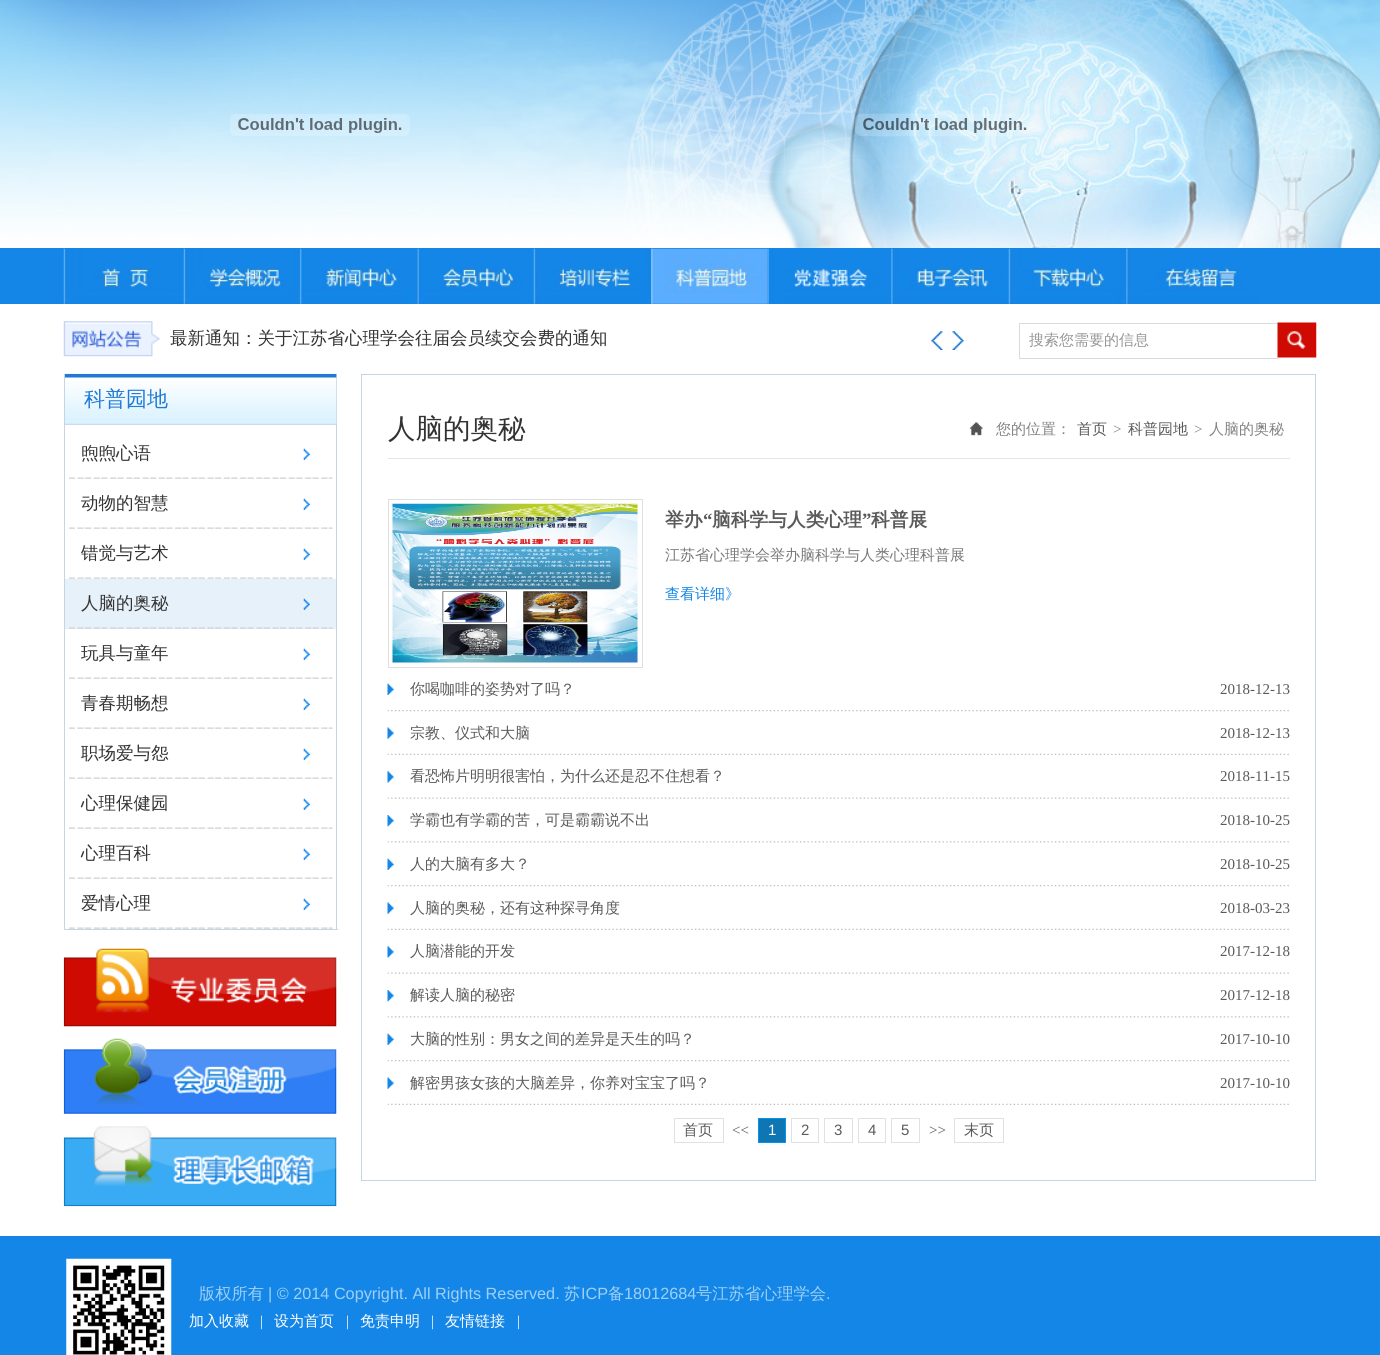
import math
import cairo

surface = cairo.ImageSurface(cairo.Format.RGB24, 1380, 1355)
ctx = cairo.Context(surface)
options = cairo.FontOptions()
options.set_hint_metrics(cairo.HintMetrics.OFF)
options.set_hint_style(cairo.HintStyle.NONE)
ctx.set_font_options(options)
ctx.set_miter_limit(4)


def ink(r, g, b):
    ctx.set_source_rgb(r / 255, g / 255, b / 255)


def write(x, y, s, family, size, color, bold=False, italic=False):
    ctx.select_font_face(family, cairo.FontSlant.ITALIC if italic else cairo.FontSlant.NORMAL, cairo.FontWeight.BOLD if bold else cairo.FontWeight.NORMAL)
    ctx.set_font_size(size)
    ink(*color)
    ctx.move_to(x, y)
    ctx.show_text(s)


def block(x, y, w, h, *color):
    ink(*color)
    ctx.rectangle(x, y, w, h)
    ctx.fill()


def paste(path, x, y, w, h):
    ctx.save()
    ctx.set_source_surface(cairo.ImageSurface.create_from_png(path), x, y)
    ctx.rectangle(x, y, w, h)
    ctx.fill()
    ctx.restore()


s1 = dict(family="WenQuanYi Zen Hei Medium", size=17.5, color=(51, 51, 51))
s2 = dict(family="WenQuanYi Zen Hei Medium", size=15, color=(150, 150, 150))
s3 = dict(family="WenQuanYi Zen Hei Medium", size=21, color=(32, 121, 213))
s4 = dict(family="WenQuanYi Zen Hei Medium", size=27.5, color=(51, 51, 51))
s5 = dict(family="WenQuanYi Zen Hei Medium", size=15, color=(131, 130, 130))
s6 = dict(family="WenQuanYi Zen Hei Medium", size=15, color=(90, 90, 90))
s7 = dict(family="Liberation Serif", size=15, color=(131, 130, 130))
s8 = dict(family="WenQuanYi Zen Hei", size=18.75, color=(90, 90, 90), bold=True)
s9 = dict(family="Liberation Serif", size=18.75, color=(90, 90, 90), bold=True)
s10 = dict(family="WenQuanYi Zen Hei Medium", size=15, color=(120, 120, 120))
s11 = dict(family="WenQuanYi Zen Hei Medium", size=15, color=(20, 134, 231))
s12 = dict(family="Liberation Serif", size=15, color=(90, 90, 90))
s13 = dict(family="Liberation Sans", size=15, color=(255, 255, 255))
s14 = dict(family="Liberation Sans", size=15, color=(90, 90, 90))
s15 = dict(family="WenQuanYi Zen Hei Medium", size=16.25, color=(158, 208, 247))
s16 = dict(family="Liberation Sans", size=16.25, color=(158, 208, 247))
s17 = dict(family="WenQuanYi Zen Hei Medium", size=15, color=(255, 255, 255))
s18 = dict(family="Liberation Serif", size=15, color=(255, 255, 255))

ink(255, 255, 255)
ctx.paint()
paste("pic1.png", 0, 0, 1380, 248)
paste("pic2.png", 230, 114, 180, 22)
paste("pic3.png", 855, 113, 180, 24)
block(0, 248, 1380, 56, 20, 134, 231)
paste("pic4.png", 63, 248, 1197, 56)
paste("pic5.png", 651, 248, 117, 56)
paste("pic6.png", 63, 321, 97, 36)
write(170, 344, "最新通知：关于江苏省心理学会往届会员续交会费的通知", **s1)
paste("pic7.png", 931, 331, 12, 19)
paste("pic8.png", 952, 331, 12, 19)
block(1019, 323, 259, 1, 219, 219, 219)
block(1019, 358, 259, 1, 219, 219, 219)
block(1019, 323, 1, 36, 219, 219, 219)
write(1029, 345, "搜索您需要的信息", **s2)
paste("pic9.png", 1277, 322, 40, 36)
block(336, 374, 1, 556, 198, 213, 229)
block(64, 929, 274, 1, 198, 213, 229)
block(64, 374, 1, 556, 198, 213, 229)
paste("pic10.png", 65, 373, 272, 52)
write(84, 406, "科普园地", **s3)
paste("pic11.png", 69, 477, 264, 2)
paste("pic12.png", 303, 448, 7, 12)
write(81, 459, "煦煦心语", **s1)
paste("pic11.png", 69, 527, 264, 2)
paste("pic12.png", 303, 498, 7, 12)
write(81, 509, "动物的智慧", **s1)
paste("pic11.png", 69, 577, 264, 2)
paste("pic12.png", 303, 548, 7, 12)
write(81, 559, "错觉与艺术", **s1)
block(65, 579, 271, 50, 231, 241, 249)
paste("pic13.png", 69, 627, 264, 2)
paste("pic14.png", 303, 598, 7, 12)
write(81, 609, "人脑的奥秘", **s1)
paste("pic11.png", 69, 677, 264, 2)
paste("pic12.png", 303, 648, 7, 12)
write(81, 659, "玩具与童年", **s1)
paste("pic11.png", 69, 727, 264, 2)
paste("pic12.png", 303, 698, 7, 12)
write(81, 709, "青春期畅想", **s1)
paste("pic11.png", 69, 777, 264, 2)
paste("pic12.png", 303, 748, 7, 12)
write(81, 759, "职场爱与怨", **s1)
paste("pic11.png", 69, 827, 264, 2)
paste("pic12.png", 303, 798, 7, 12)
write(81, 809, "心理保健园", **s1)
paste("pic11.png", 69, 877, 264, 2)
paste("pic12.png", 303, 848, 7, 12)
write(81, 859, "心理百科", **s1)
paste("pic11.png", 69, 927, 264, 2)
paste("pic12.png", 303, 898, 7, 12)
write(81, 909, "爱情心理", **s1)
paste("pic15.png", 63, 948, 274, 79)
paste("pic16.png", 63, 1038, 274, 76)
paste("pic17.png", 63, 1126, 274, 81)
ctx.rectangle(361.5, 374.5, 954, 806)
ink(198, 213, 229)
ctx.set_line_width(1)
ctx.stroke()
block(388, 458, 902, 1, 229, 229, 229)
write(388, 438, "人脑的奥秘", **s4)
paste("pic18.png", 969, 422, 14, 14)
write(996, 434, "您的位置：", **s5)
write(1077, 434, "首页", **s6)
write(1113, 434, ">", **s7)
write(1128, 434, "科普园地", **s6)
write(1194, 434, ">", **s7)
write(1209, 434, "人脑的奥秘", **s5)
ctx.rectangle(388.5, 499.5, 254, 168)
ink(223, 223, 223)
ctx.stroke()
paste("pic19.png", 392, 503, 246, 160)
write(665, 526, "举办", **s8)
write(703, 526, "“", **s9)
write(712, 526, "脑科学与人类心理", **s8)
write(862, 526, "”", **s9)
write(871, 526, "科普展", **s8)
write(665, 560, "江苏省心理学会举办脑科学与人类心理科普展", **s10)
write(665, 599, "查看详细》", **s11)
paste("pic20.png", 387, 710, 902, 2)
paste("pic21.png", 387, 683, 7, 12)
write(410, 694, "你喝咖啡的姿势对了吗？", **s6)
write(1220, 694, "2018-12-13", **s12)
paste("pic22.png", 387, 753, 902, 2)
paste("pic23.png", 387, 727, 7, 12)
write(410, 738, "宗教、仪式和大脑", **s6)
write(1220, 738, "2018-12-13", **s12)
paste("pic24.png", 387, 797, 902, 2)
paste("pic25.png", 387, 771, 7, 12)
write(410, 781, "看恐怖片明明很害怕，为什么还是忍不住想看？", **s6)
write(1220, 781, "2018-11-15", **s12)
paste("pic26.png", 387, 841, 902, 2)
paste("pic27.png", 387, 815, 7, 12)
write(410, 825, "学霸也有学霸的苦，可是霸霸说不出", **s6)
write(1220, 825, "2018-10-25", **s12)
paste("pic20.png", 387, 885, 902, 2)
paste("pic21.png", 387, 858, 7, 12)
write(410, 869, "人的大脑有多大？", **s6)
write(1220, 869, "2018-10-25", **s12)
paste("pic22.png", 387, 928, 902, 2)
paste("pic23.png", 387, 902, 7, 12)
write(410, 913, "人脑的奥秘，还有这种探寻角度", **s6)
write(1220, 913, "2018-03-23", **s12)
paste("pic24.png", 387, 972, 902, 2)
paste("pic25.png", 387, 946, 7, 12)
write(410, 956, "人脑潜能的开发", **s6)
write(1220, 956, "2017-12-18", **s12)
paste("pic26.png", 387, 1016, 902, 2)
paste("pic27.png", 387, 990, 7, 12)
write(410, 1000, "解读人脑的秘密", **s6)
write(1220, 1000, "2017-12-18", **s12)
paste("pic20.png", 387, 1060, 902, 2)
paste("pic21.png", 387, 1033, 7, 12)
write(410, 1044, "大脑的性别：男女之间的差异是天生的吗？", **s6)
write(1220, 1044, "2017-10-10", **s12)
paste("pic22.png", 387, 1103, 902, 2)
paste("pic23.png", 387, 1077, 7, 12)
write(410, 1088, "解密男孩女孩的大脑差异，你养对宝宝了吗？", **s6)
write(1220, 1088, "2017-10-10", **s12)
ctx.rectangle(674.5, 1118.5, 49, 24)
ink(225, 225, 225)
ctx.stroke()
write(683, 1135, "首页", **s6)
write(732, 1135, "<<", **s12)
ink(14, 118, 179)
ctx.rectangle(758.5, 1118.5, 27, 24)
ctx.fill_preserve()
ink(3, 149, 234)
ctx.stroke()
write(768, 1135, "1", **s13)
ctx.rectangle(791.5, 1118.5, 27, 24)
ink(225, 225, 225)
ctx.stroke()
write(801, 1135, "2", **s14)
ctx.rectangle(824.5, 1118.5, 28, 24)
ink(225, 225, 225)
ctx.stroke()
write(834, 1135, "3", **s14)
ctx.rectangle(858.5, 1118.5, 27, 24)
ink(225, 225, 225)
ctx.stroke()
write(868, 1135, "4", **s14)
ctx.rectangle(891.5, 1118.5, 28, 24)
ink(225, 225, 225)
ctx.stroke()
write(901, 1135, "5", **s14)
write(929, 1135, ">>", **s12)
ctx.rectangle(954.5, 1118.5, 49, 24)
ink(225, 225, 225)
ctx.stroke()
write(964, 1135, "末页", **s6)
block(0, 1236, 1380, 119, 20, 134, 231)
paste("pic28.png", 66, 1258, 106, 97)
write(199, 1299, "版权所有", **s15)
write(268, 1299, "| © 2014 Copyright. All Rights Reserved.", **s16)
write(564, 1299, "苏", **s15)
write(581, 1299, "ICP", **s16)
write(608, 1299, "备", **s15)
write(624, 1299, "18012684", **s16)
write(696, 1299, "号江苏省心理学会", **s15)
write(826, 1299, ".", **s16)
write(189, 1326, "加入收藏", **s17)
write(260, 1326, "|", **s18)
write(274, 1326, "设为首页", **s17)
write(346, 1326, "|", **s18)
write(360, 1326, "免责申明", **s17)
write(431, 1326, "|", **s18)
write(445, 1326, "友情链接", **s17)
write(517, 1326, "|", **s18)
surface.write_to_png("screenshot.png")
